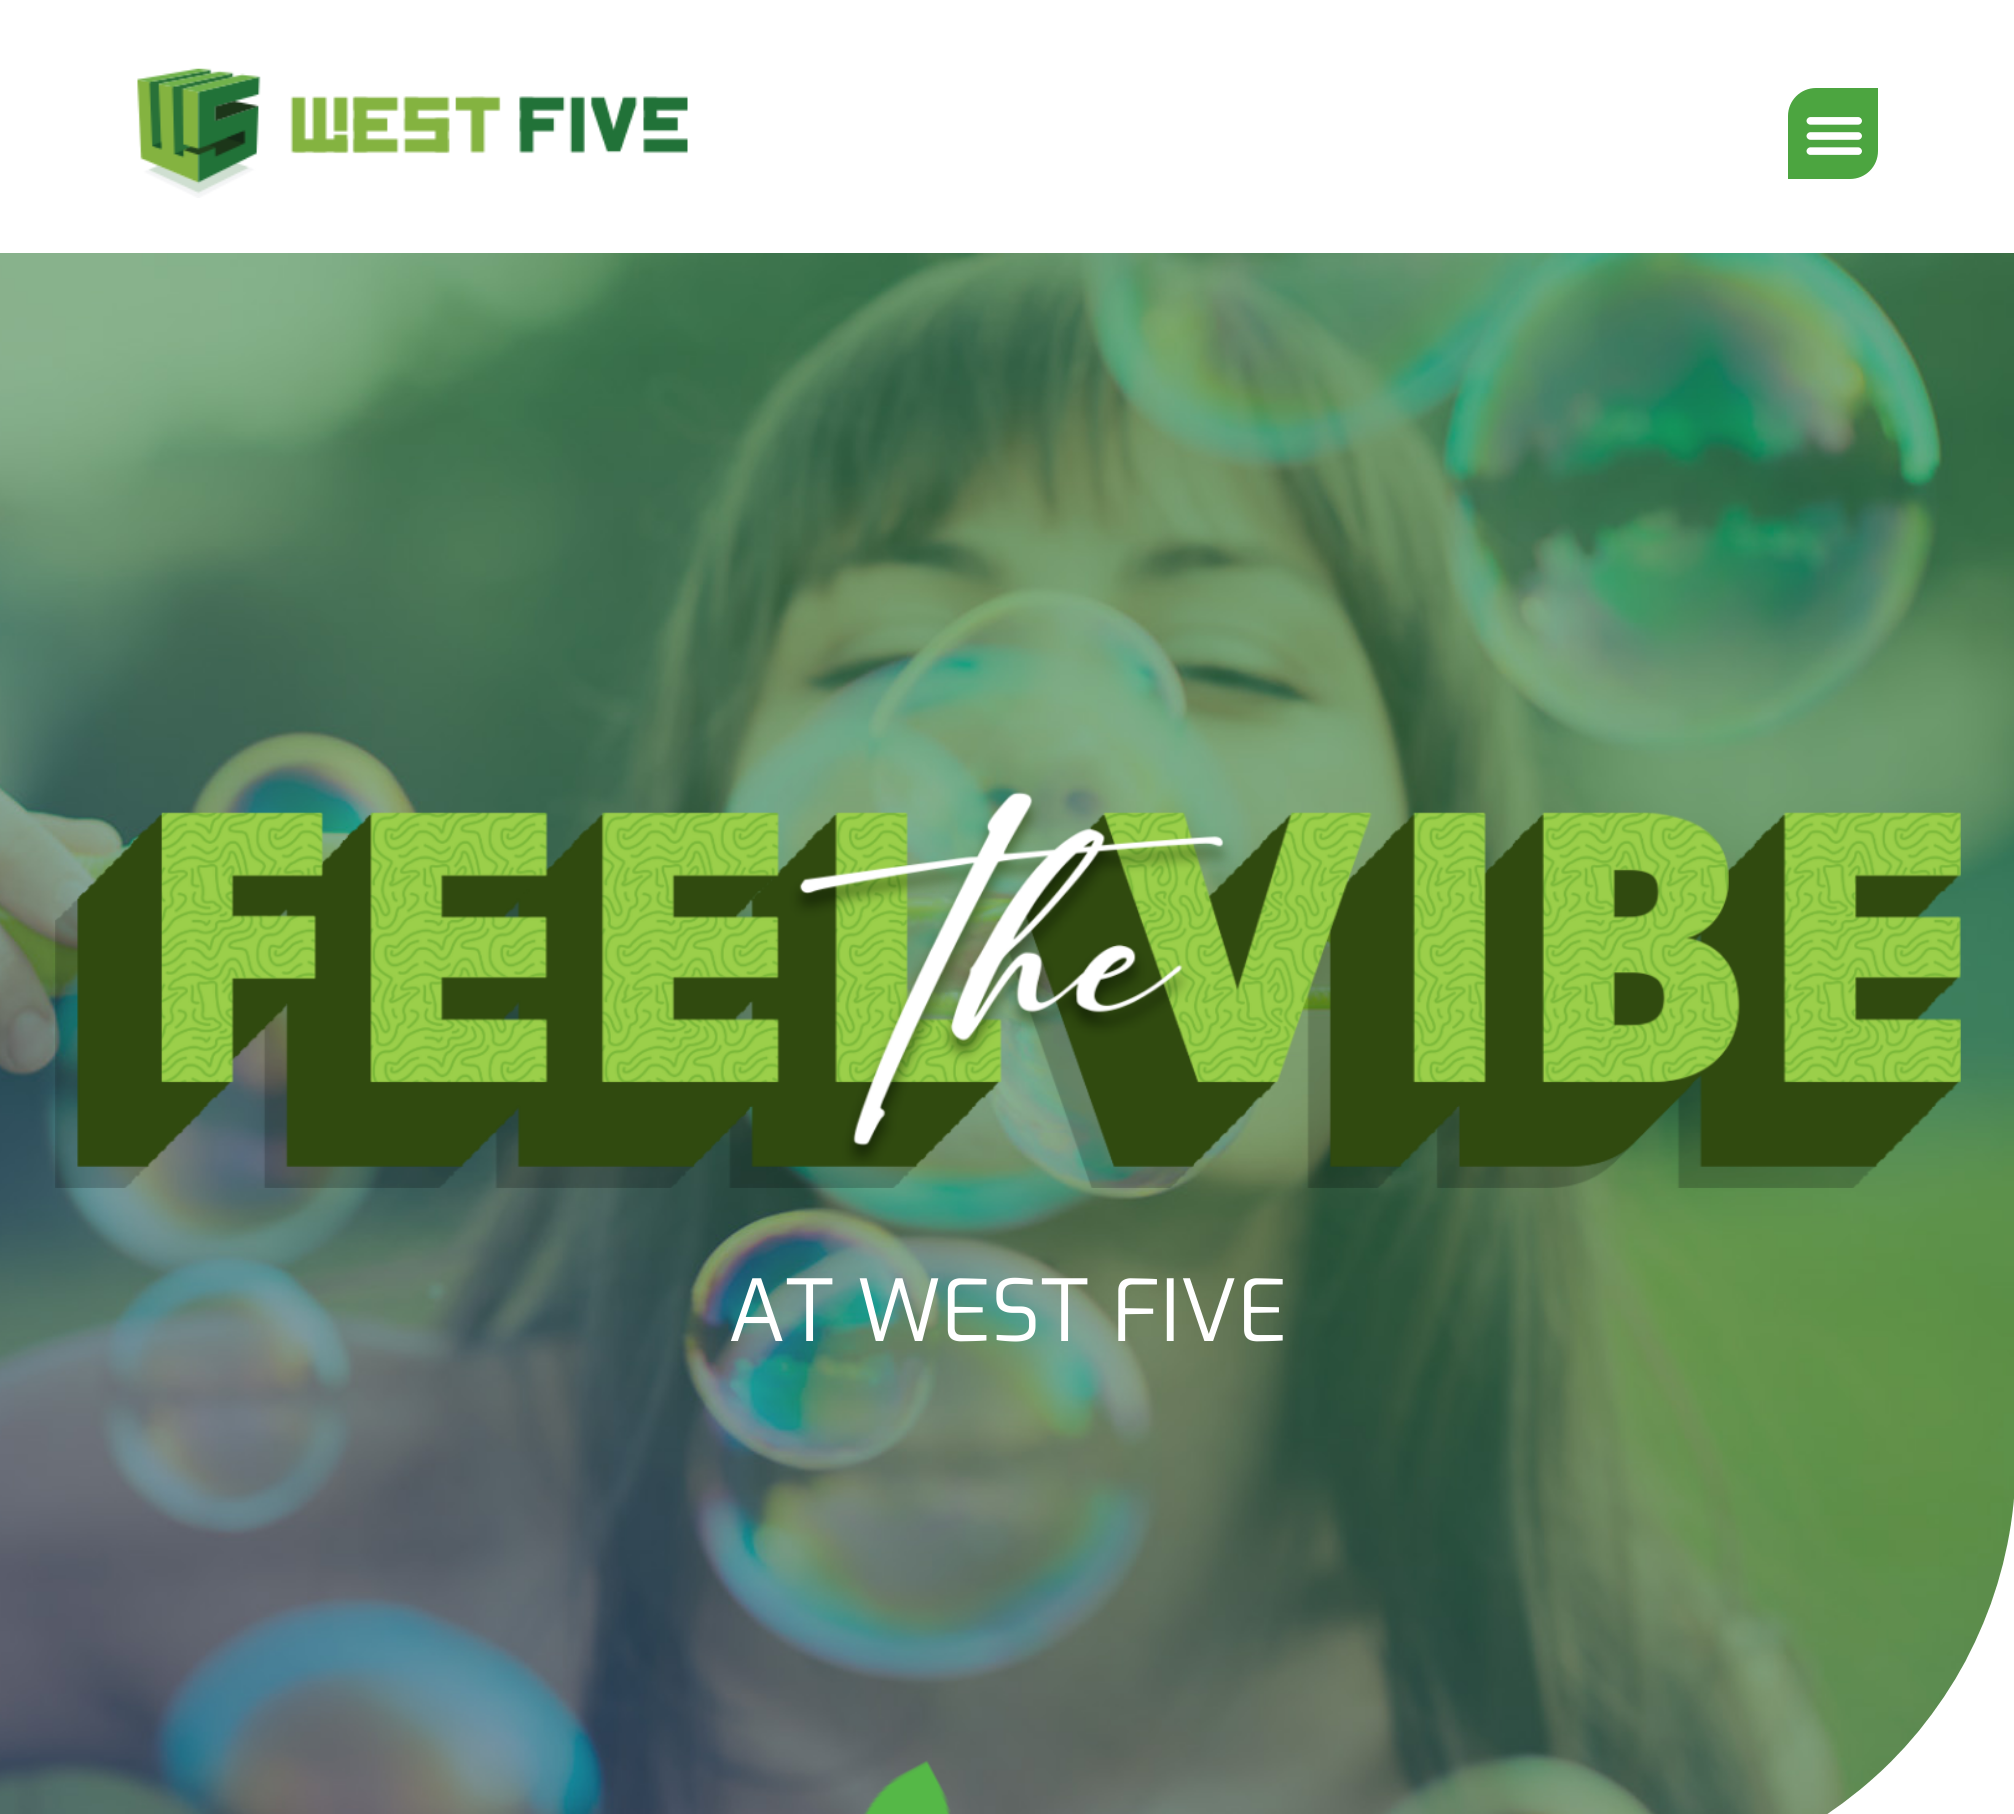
import math
import cairo

surface = cairo.ImageSurface(cairo.Format.RGB24, 2014, 1814)
ctx = cairo.Context(surface)
options = cairo.FontOptions()
options.set_hint_metrics(cairo.HintMetrics.OFF)
options.set_hint_style(cairo.HintStyle.NONE)
ctx.set_font_options(options)
ctx.set_miter_limit(4)


def ink(r, g, b):
    ctx.set_source_rgb(r / 255, g / 255, b / 255)


def write(x, y, s, family, size, color, bold=False, italic=False):
    ctx.select_font_face(family, cairo.FontSlant.ITALIC if italic else cairo.FontSlant.NORMAL, cairo.FontWeight.BOLD if bold else cairo.FontWeight.NORMAL)
    ctx.set_font_size(size)
    ink(*color)
    ctx.move_to(x, y)
    ctx.show_text(s)


def paste(path, x, y, w, h):
    ctx.save()
    ctx.set_source_surface(cairo.ImageSurface.create_from_png(path), x, y)
    ctx.rectangle(x, y, w, h)
    ctx.fill()
    ctx.restore()


s1 = dict(family="Exo", size=85.25, color=(255, 255, 255))

ink(255, 255, 255)
ctx.paint()
paste("pic1.png", 137, 68, 551, 130)
ink(76, 165, 64)
ctx.new_path()
ctx.move_to(1816, 88)
ctx.line_to(1878, 88)
ctx.line_to(1878, 151)
ctx.curve_to(1878, 166.5, 1865.5, 179, 1850, 179)
ctx.line_to(1788, 179)
ctx.line_to(1788, 116)
ctx.curve_to(1788, 100.5, 1800.5, 88, 1816, 88)
ctx.close_path()
ctx.fill()
paste("pic2.png", 1806, 117, 56, 38)
paste("pic3.png", 0, 253, 2014, 1561)
paste("pic4.png", 55, 792, 1906, 396)
write(728, 1341, "AT WEST FIVE", **s1)
paste("pic5.png", 863, 1760, 88, 54)
surface.write_to_png("screenshot.png")
